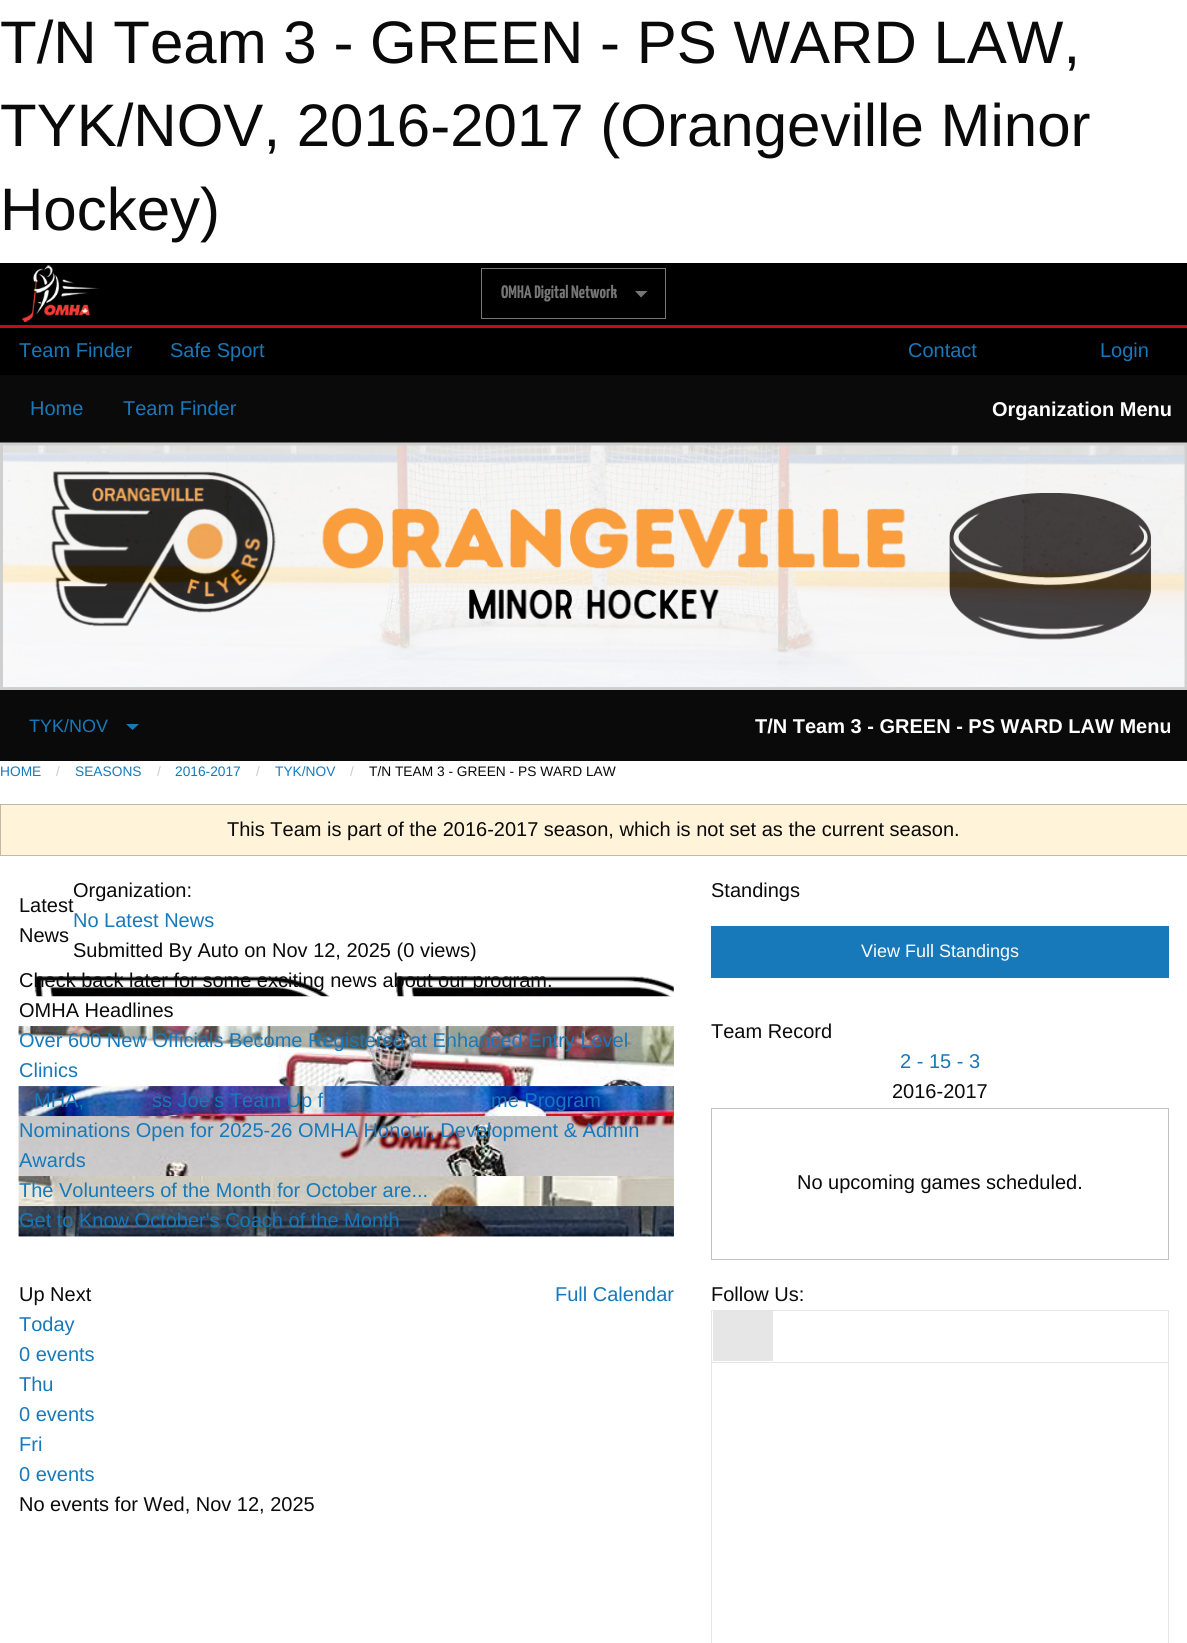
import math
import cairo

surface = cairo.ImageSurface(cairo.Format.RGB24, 1187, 1643)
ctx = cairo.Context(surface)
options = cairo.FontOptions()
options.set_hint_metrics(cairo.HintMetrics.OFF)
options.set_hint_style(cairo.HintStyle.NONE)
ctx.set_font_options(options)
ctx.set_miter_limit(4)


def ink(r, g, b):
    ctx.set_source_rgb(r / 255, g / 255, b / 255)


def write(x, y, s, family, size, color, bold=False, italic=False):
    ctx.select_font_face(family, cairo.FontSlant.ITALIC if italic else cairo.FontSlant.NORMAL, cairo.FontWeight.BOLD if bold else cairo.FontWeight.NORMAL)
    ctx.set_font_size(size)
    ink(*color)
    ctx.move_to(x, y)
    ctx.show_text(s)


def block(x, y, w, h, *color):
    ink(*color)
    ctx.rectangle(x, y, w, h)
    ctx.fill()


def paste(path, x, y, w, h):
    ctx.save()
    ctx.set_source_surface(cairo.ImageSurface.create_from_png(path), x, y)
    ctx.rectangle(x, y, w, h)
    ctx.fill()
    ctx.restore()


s1 = dict(family="Liberation Sans", size=60, color=(10, 10, 10))
s2 = dict(family="Yanone Kaffeesatz ExtraLight", size=18, color=(118, 118, 118))
s3 = dict(family="Liberation Sans", size=20, color=(23, 121, 186))
s4 = dict(family="Liberation Sans", size=20, color=(254, 254, 254), bold=True)
s5 = dict(family="Liberation Sans", size=18, color=(23, 121, 186))
s6 = dict(family="Liberation Sans", size=13.75, color=(23, 121, 186))
s7 = dict(family="Liberation Sans", size=13.75, color=(202, 202, 202))
s8 = dict(family="Liberation Sans", size=13.75, color=(10, 10, 10))
s9 = dict(family="Liberation Sans", size=20, color=(10, 10, 10))
s10 = dict(family="Liberation Sans", size=18, color=(254, 254, 254))

ink(255, 255, 255)
ctx.paint()
write(0, 63, "T/N Team 3 - GREEN - PS WARD LAW,", **s1)
write(0, 146, "TYK/NOV, 2016-2017 (Orangeville Minor", **s1)
write(0, 230, "Hockey)", **s1)
block(0, 263, 1187, 62, 0, 0, 0)
block(0, 325, 1187, 3, 198, 12, 12)
paste("pic1.png", 21, 265, 79, 57)
ctx.rectangle(481.5, 268.5, 184, 50)
ink(118, 118, 118)
ctx.set_line_width(1)
ctx.stroke()
write(501, 298, "OMHA Digital Network", **s2)
ctx.new_path()
ctx.move_to(635, 291)
ctx.line_to(647.5, 291)
ctx.line_to(641, 297.5)
ctx.close_path()
ctx.fill()
block(0, 328, 1187, 47, 0, 0, 0)
write(19, 357, "Team Finder", **s3)
write(170, 357, "Safe Sport", **s3)
write(908, 357, "Contact", **s3)
write(1100, 357, "Login", **s3)
block(0, 375, 1187, 68, 10, 10, 10)
write(30, 415, "Home", **s3)
write(123, 415, "Team Finder", **s3)
write(992, 416, "Organization Menu", **s4)
paste("pic2.png", 0, 442, 1187, 248)
block(0, 690, 1187, 71, 10, 10, 10)
write(29, 732, "TYK/NOV", **s5)
ctx.new_path()
ctx.move_to(126, 724)
ctx.line_to(139, 724)
ctx.line_to(132.5, 730)
ctx.close_path()
ctx.fill()
write(755, 733, "T/N Team 3 - GREEN - PS WARD LAW Menu", **s4)
write(0, 776, "HOME", **s6)
write(56, 776, "/", **s7)
write(75, 776, "SEASONS", **s6)
write(157, 776, "/", **s7)
write(175, 776, "2016-2017", **s6)
write(256, 776, "/", **s7)
write(275, 776, "TYK/NOV", **s6)
write(350, 776, "/", **s7)
write(369, 776, "T/N TEAM 3 - GREEN - PS WARD LAW", **s8)
ink(255, 243, 217)
ctx.rectangle(0.5, 804.5, 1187, 51)
ctx.fill_preserve()
ink(194, 185, 165)
ctx.stroke()
write(227, 836, "This Team is part of the 2016-2017 season, which is not set as the current season.", **s9)
write(19, 912, "Latest", **s9)
write(19, 942, "News", **s9)
write(73, 897, "Organization:", **s9)
write(73, 927, "No Latest News", **s3)
write(73, 957, "Submitted By Auto on Nov 12, 2025 (0 views)", **s9)
paste("pic3.png", 34, 976, 640, 21)
write(19, 987, "Check back later for some exciting news about our program.", **s9)
write(19, 1017, "OMHA Headlines", **s9)
paste("pic4.png", 18, 1026, 656, 61)
paste("pic5.png", 18, 1026, 656, 61)
write(19, 1047, "Over 600 New Officials Become Registered at Enhanced Entry Level", **s3)
write(19, 1077, "Clinics", **s3)
paste("pic6.png", 18, 1086, 656, 31)
paste("pic7.png", 18, 1086, 656, 31)
write(34, 1107, "MHA,", **s3)
write(152, 1107, "ss Joe’s Team Up f", **s3)
write(491, 1107, "me Program", **s3)
paste("pic8.png", 18, 1116, 656, 61)
paste("pic9.png", 18, 1116, 656, 61)
write(19, 1137, "Nominations Open for 2025-26 OMHA Honour, Development & Admin", **s3)
write(19, 1167, "Awards", **s3)
paste("pic10.png", 18, 1176, 656, 31)
paste("pic11.png", 18, 1176, 656, 31)
write(19, 1197, "The Volunteers of the Month for October are...", **s3)
paste("pic12.png", 18, 1206, 656, 31)
paste("pic13.png", 18, 1206, 656, 31)
write(19, 1227, "Get to Know October's Coach of the Month", **s3)
write(711, 897, "Standings", **s9)
block(711, 926, 458, 52, 23, 121, 186)
write(861, 957, "View Full Standings", **s10)
write(711, 1038, "Team Record", **s9)
write(900, 1068, "2 - 15 - 3", **s3)
write(892, 1098, "2016-2017", **s9)
ctx.rectangle(711.5, 1108.5, 457, 151)
ink(194, 194, 194)
ctx.stroke()
write(797, 1189, "No upcoming games scheduled.", **s9)
write(19, 1301, "Up Next", **s9)
write(555, 1301, "Full Calendar", **s3)
write(19, 1331, "Today", **s3)
write(19, 1361, "0 events", **s3)
write(19, 1391, "Thu", **s3)
write(19, 1421, "0 events", **s3)
write(19, 1451, "Fri", **s3)
write(19, 1481, "0 events", **s3)
write(19, 1511, "No events for Wed, Nov 12, 2025", **s9)
write(711, 1301, "Follow Us:", **s9)
ctx.rectangle(711.5, 1310.5, 457, 52)
ink(230, 230, 230)
ctx.stroke()
block(713, 1311, 60, 50, 230, 230, 230)
block(1168, 1363, 1, 280, 230, 230, 230)
block(711, 1363, 1, 280, 230, 230, 230)
surface.write_to_png("screenshot.png")
